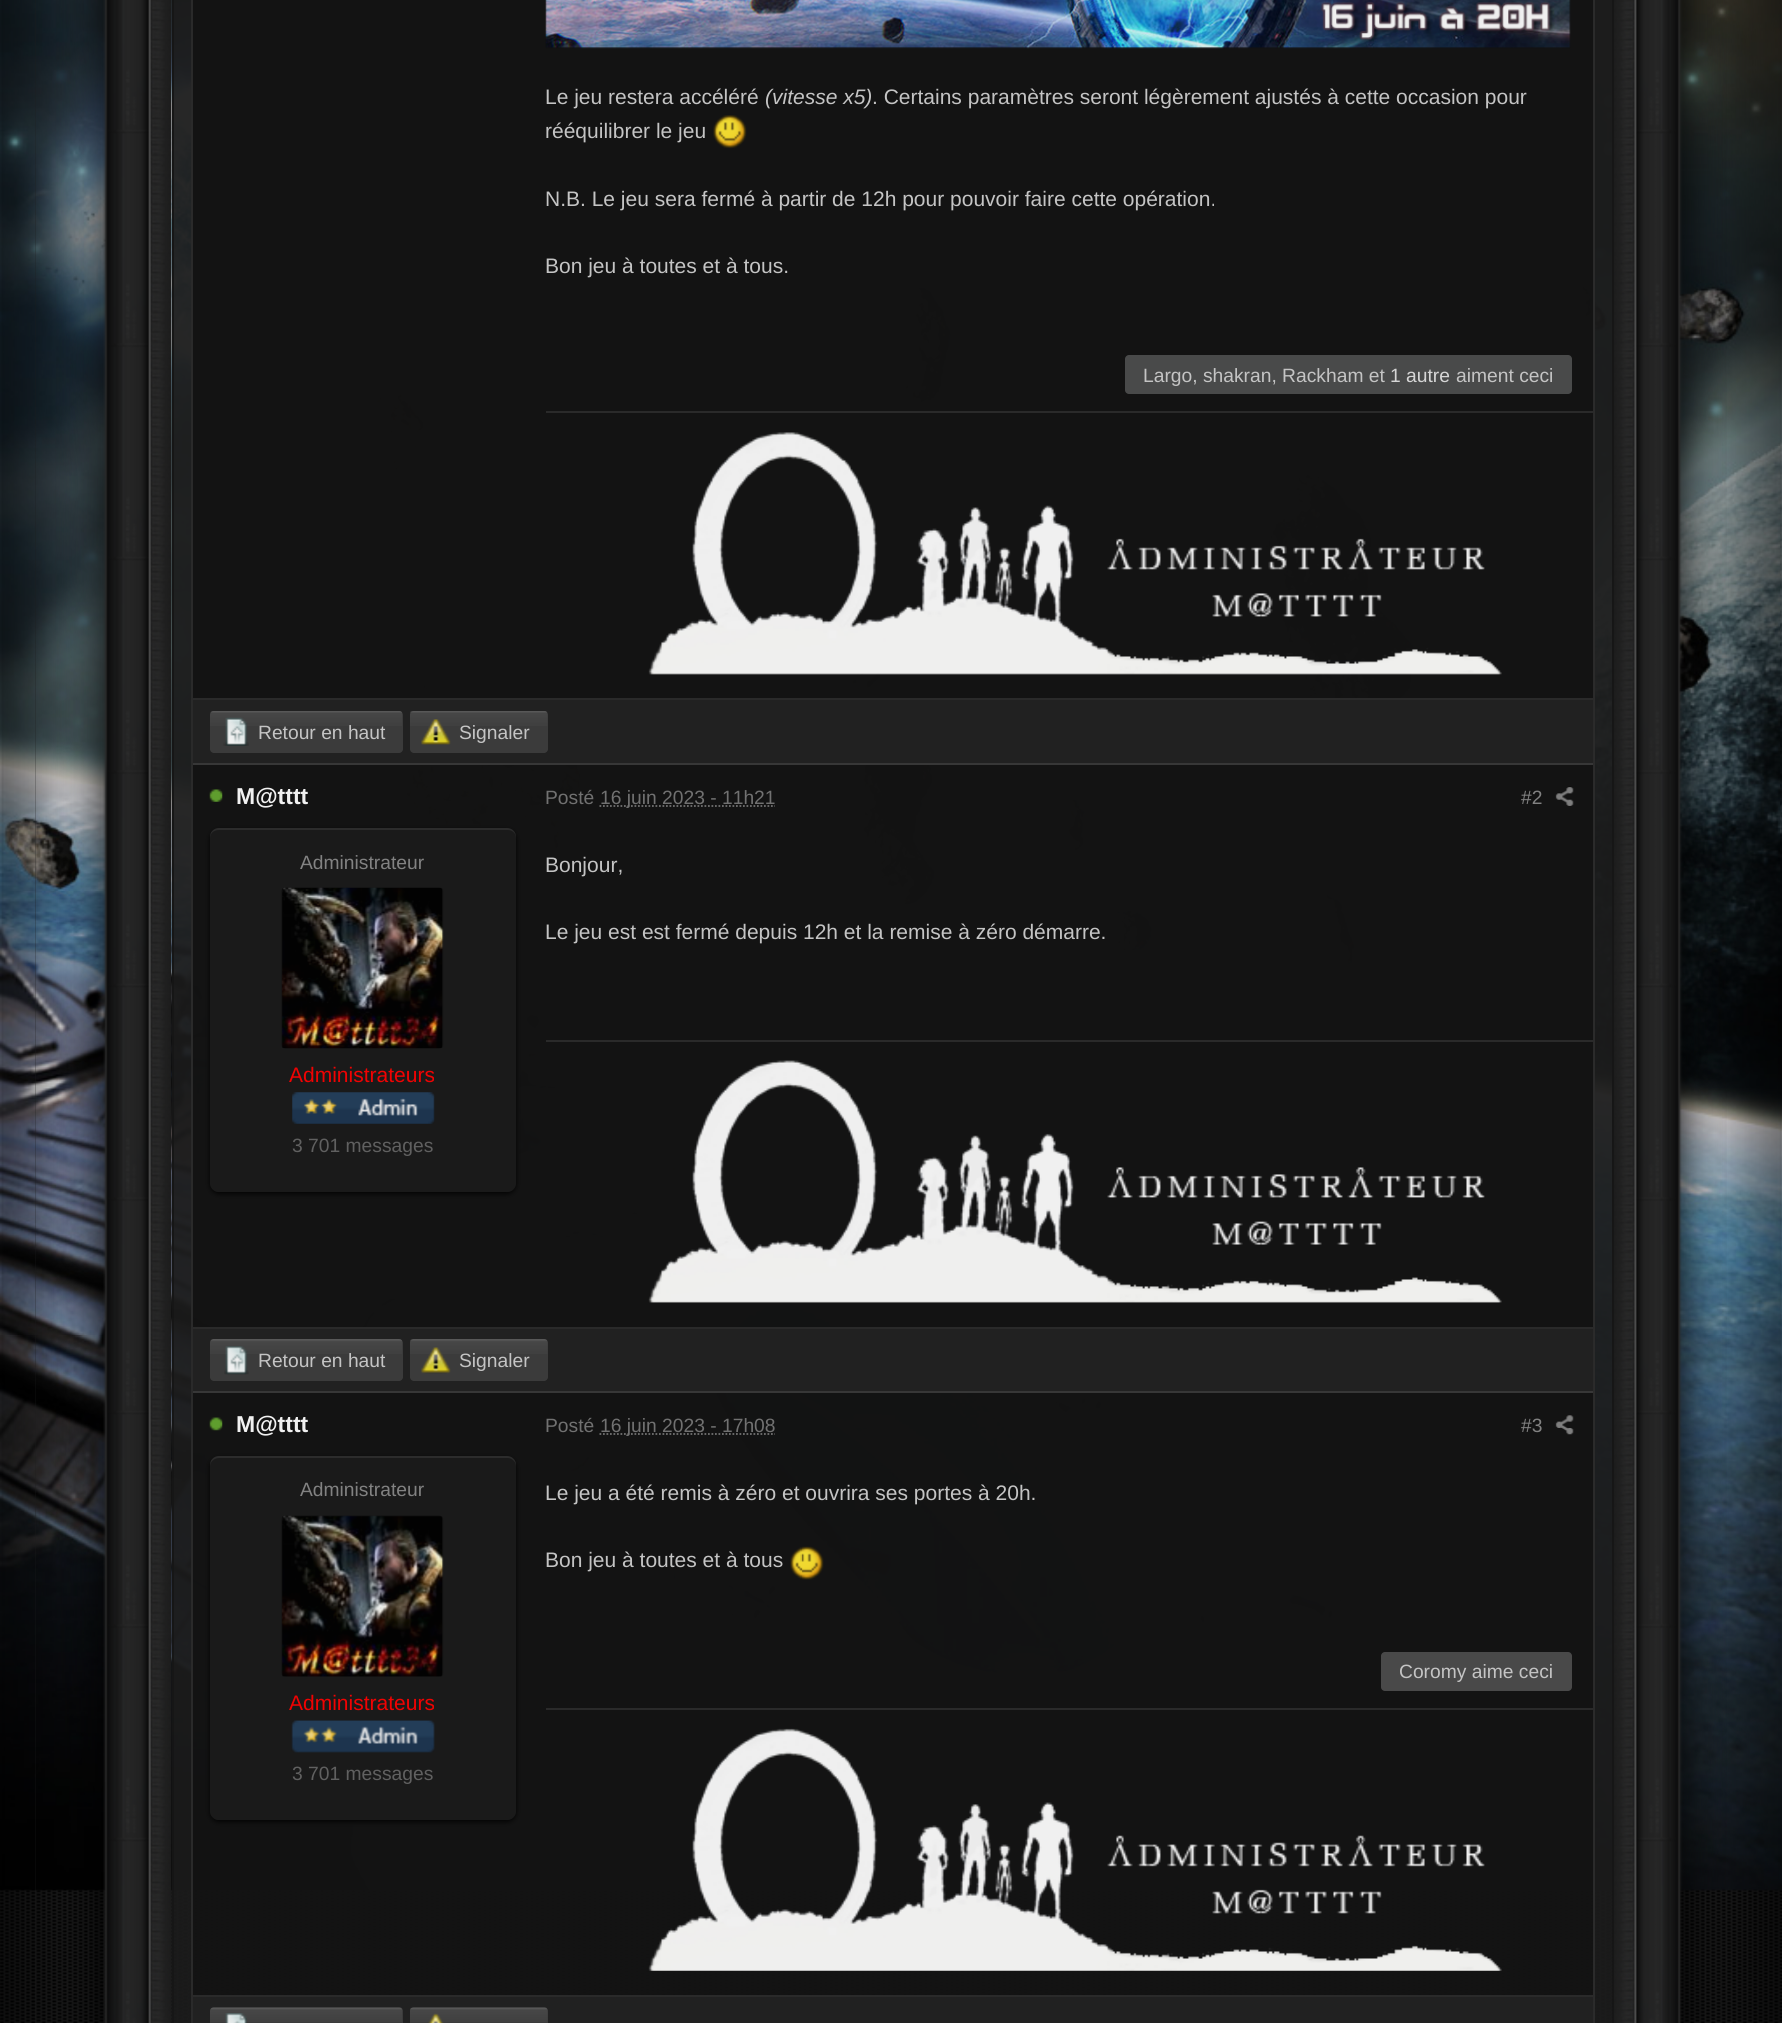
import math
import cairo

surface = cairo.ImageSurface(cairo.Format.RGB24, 1782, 2023)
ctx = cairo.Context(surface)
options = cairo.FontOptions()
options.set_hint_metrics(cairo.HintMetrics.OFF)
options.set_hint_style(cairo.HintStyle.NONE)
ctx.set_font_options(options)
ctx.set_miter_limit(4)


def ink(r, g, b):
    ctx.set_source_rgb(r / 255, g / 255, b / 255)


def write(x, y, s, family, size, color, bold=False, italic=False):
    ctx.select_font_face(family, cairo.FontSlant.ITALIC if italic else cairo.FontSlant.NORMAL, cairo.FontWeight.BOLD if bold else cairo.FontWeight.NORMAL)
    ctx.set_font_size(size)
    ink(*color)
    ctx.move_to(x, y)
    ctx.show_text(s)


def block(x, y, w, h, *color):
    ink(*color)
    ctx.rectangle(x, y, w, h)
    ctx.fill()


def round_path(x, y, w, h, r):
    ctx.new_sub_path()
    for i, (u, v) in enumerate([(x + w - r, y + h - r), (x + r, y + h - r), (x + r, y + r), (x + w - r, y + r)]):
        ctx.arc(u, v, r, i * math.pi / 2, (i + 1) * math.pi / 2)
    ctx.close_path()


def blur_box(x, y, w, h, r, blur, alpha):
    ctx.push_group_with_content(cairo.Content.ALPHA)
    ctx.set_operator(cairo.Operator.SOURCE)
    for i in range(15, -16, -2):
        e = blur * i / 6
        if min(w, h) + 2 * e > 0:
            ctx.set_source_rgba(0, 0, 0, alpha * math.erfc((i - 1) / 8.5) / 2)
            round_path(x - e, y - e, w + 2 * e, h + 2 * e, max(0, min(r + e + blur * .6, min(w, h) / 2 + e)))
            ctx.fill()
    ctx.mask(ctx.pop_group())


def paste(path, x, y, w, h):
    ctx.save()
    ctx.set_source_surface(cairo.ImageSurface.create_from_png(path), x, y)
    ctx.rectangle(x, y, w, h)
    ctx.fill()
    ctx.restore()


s1 = dict(family="Liberation Sans", size=21, color=(196, 196, 196))
s2 = dict(family="Liberation Sans", size=21, color=(196, 196, 196), italic=True)
s3 = dict(family="Liberation Sans", size=19.25, color=(196, 196, 196))
s4 = dict(family="Liberation Sans", size=19.25, color=(214, 214, 214))
s5 = dict(family="Liberation Sans", size=23, color=(241, 241, 241), bold=True)
s6 = dict(family="Liberation Sans", size=19.25, color=(113, 113, 113))
s7 = dict(family="Liberation Sans", size=19.25, color=(130, 130, 130))
s8 = dict(family="Liberation Sans", size=21, color=(241, 2, 2))
s9 = dict(family="Liberation Sans", size=19.25, color=(96, 96, 96))

ink(29, 29, 29)
ctx.paint()
paste("pic1.png", 0, 1889, 1782, 134)
paste("pic2.png", 0, 0, 1782, 1891)
paste("pic3.png", 0, 0, 101, 2023)
paste("pic4.png", 1682, 0, 100, 2023)
paste("pic5.png", 35, 0, 137, 2023)
paste("pic6.png", 1613, 0, 114, 2023)
ctx.set_source_rgba(0.106, 0.106, 0.106, 0.94)
ctx.rectangle(172, 0, 1442, 2023)
ctx.fill()
ctx.set_source_rgba(0.086, 0.086, 0.086, 0.94)
ctx.rectangle(1612, 0, 2, 2023)
ctx.fill()
ctx.rectangle(172, 0, 2, 2023)
ctx.fill()
ctx.set_source_rgba(0.071, 0.071, 0.071, 0.94)
ctx.rectangle(193, 0, 1401, 2023)
ctx.fill()
ctx.set_source_rgba(0.173, 0.173, 0.173, 0.94)
ctx.rectangle(1593, 0, 2, 2023)
ctx.fill()
block(191, 0, 2, 2023, 42, 42, 42)
paste("pic7.png", 545, 0, 1026, 49)
write(545, 104, "Le jeu restera accéléré", **s1)
write(765, 104, "(vitesse x5)", **s2)
write(872, 104, ". Certains paramètres seront légèrement ajustés à cette occasion pour", **s1)
write(545, 138, "rééquilibrer le jeu", **s1)
paste("pic8.png", 713, 115, 34, 34)
write(545, 206, "N.B. Le jeu sera fermé à partir de 12h pour pouvoir faire cette opération.", **s1)
write(545, 273, "Bon jeu à toutes et à tous.", **s1)
ink(73, 74, 74)
round_path(1125, 355, 447, 39, 4)
ctx.fill()
write(1143, 382, "Largo, shakran, Rackham et", **s3)
write(1390, 382, "1 autre", **s4)
write(1456, 382, "aiment ceci", **s3)
block(546, 411, 1047, 2, 42, 42, 42)
paste("pic9.png", 648, 432, 854, 243)
block(193, 700, 1400, 63, 33, 33, 33)
block(193, 698, 1400, 2, 42, 42, 42)
ink(59, 59, 59)
round_path(210, 711, 193, 42, 4)
ctx.fill()
paste("pic10.png", 210, 711, 192, 15)
paste("pic11.png", 223, 717, 26, 29)
write(258, 739, "Retour en haut", **s3)
ink(59, 59, 59)
round_path(410, 711, 138, 42, 4)
ctx.fill()
paste("pic12.png", 410, 711, 138, 15)
paste("pic13.png", 421, 719, 30, 26)
write(459, 739, "Signaler", **s3)
block(193, 763, 1400, 2, 55, 55, 55)
paste("pic14.png", 209, 789, 14, 13)
write(236, 804, "M@tttt", **s5)
write(545, 804, "Posté", **s6)
ctx.new_path()
ctx.move_to(599.5, 806)
ctx.line_to(775, 806)
ctx.set_line_width(1.8)
ctx.set_dash([1.75, 1.75])
ctx.stroke()
write(600, 804, "16 juin 2023 - 11h21", **s6)
write(1521, 804, "#2", **s7)
paste("pic15.png", 1555, 786, 19, 20)
ctx.save()
ctx.set_fill_rule(cairo.FillRule.EVEN_ODD)
ctx.new_path()
ctx.move_to(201, 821)
ctx.line_to(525, 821)
ctx.line_to(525, 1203)
ctx.line_to(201, 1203)
ctx.close_path()
ctx.move_to(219, 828)
ctx.line_to(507, 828)
ctx.curve_to(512, 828, 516, 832, 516, 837)
ctx.line_to(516, 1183)
ctx.curve_to(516, 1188, 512, 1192, 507, 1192)
ctx.line_to(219, 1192)
ctx.curve_to(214, 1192, 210, 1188, 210, 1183)
ctx.line_to(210, 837)
ctx.curve_to(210, 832, 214, 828, 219, 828)
ctx.close_path()
ctx.clip()
ink(0, 0, 0)
blur_box(210, 830, 306, 364, 9, 2.5, 0.85)
ctx.restore()
ctx.set_source_rgba(0.106, 0.106, 0.106, 0.94)
round_path(210, 828, 306, 364, 9)
ctx.fill()
ctx.set_source_rgba(1, 1, 1, 0.08)
ctx.new_path()
ctx.move_to(219, 830)
ctx.line_to(508, 830)
ctx.curve_to(512, 830, 516, 833, 516, 838)
ctx.line_to(516, 837)
ctx.curve_to(516, 832, 512, 828, 507, 828)
ctx.line_to(219, 828)
ctx.curve_to(214, 828, 210, 832, 210, 837)
ctx.line_to(210, 838)
ctx.curve_to(210, 833, 214, 830, 219, 830)
ctx.close_path()
ctx.fill()
write(300, 869, "Administrateur", **s7)
paste("pic16.png", 281, 887, 163, 162)
write(289, 1082, "Administrateurs", **s8)
paste("pic17.png", 292, 1092, 143, 32)
write(292, 1152, "3 701 messages", **s9)
write(545, 872, "Bonjour,", **s1)
write(545, 939, "Le jeu est est fermé depuis 12h et la remise à zéro démarre.", **s1)
block(546, 1040, 1047, 2, 42, 42, 42)
paste("pic18.png", 648, 1060, 854, 243)
block(193, 1329, 1400, 62, 33, 33, 33)
block(193, 1327, 1400, 2, 42, 42, 42)
ink(59, 59, 59)
round_path(210, 1339, 193, 42, 4)
ctx.fill()
paste("pic19.png", 210, 1339, 192, 15)
paste("pic20.png", 224, 1346, 25, 29)
write(258, 1367, "Retour en haut", **s3)
ink(59, 59, 59)
round_path(410, 1339, 138, 42, 4)
ctx.fill()
paste("pic21.png", 410, 1339, 138, 15)
paste("pic22.png", 421, 1347, 30, 27)
write(459, 1367, "Signaler", **s3)
block(193, 1391, 1400, 2, 55, 55, 55)
paste("pic23.png", 209, 1417, 14, 14)
write(236, 1432, "M@tttt", **s5)
write(545, 1432, "Posté", **s6)
ctx.new_path()
ctx.move_to(599.5, 1434)
ctx.line_to(775, 1434)
ctx.stroke()
write(600, 1432, "16 juin 2023 - 17h08", **s6)
write(1521, 1432, "#3", **s7)
paste("pic24.png", 1555, 1415, 19, 20)
ctx.save()
ctx.set_fill_rule(cairo.FillRule.EVEN_ODD)
ctx.new_path()
ctx.move_to(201, 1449)
ctx.line_to(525, 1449)
ctx.line_to(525, 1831)
ctx.line_to(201, 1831)
ctx.close_path()
ctx.move_to(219, 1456)
ctx.line_to(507, 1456)
ctx.curve_to(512, 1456, 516, 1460, 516, 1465)
ctx.line_to(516, 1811)
ctx.curve_to(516, 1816, 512, 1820, 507, 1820)
ctx.line_to(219, 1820)
ctx.curve_to(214, 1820, 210, 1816, 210, 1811)
ctx.line_to(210, 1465)
ctx.curve_to(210, 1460, 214, 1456, 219, 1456)
ctx.close_path()
ctx.clip()
ink(0, 0, 0)
blur_box(210, 1458, 306, 364, 9, 2.5, 0.85)
ctx.restore()
ctx.set_source_rgba(0.106, 0.106, 0.106, 0.94)
round_path(210, 1456, 306, 364, 9)
ctx.fill()
ctx.set_source_rgba(1, 1, 1, 0.08)
ctx.new_path()
ctx.move_to(219, 1458)
ctx.line_to(508, 1458)
ctx.curve_to(512, 1458, 516, 1462, 516, 1466)
ctx.line_to(516, 1465)
ctx.curve_to(516, 1460, 512, 1456, 507, 1456)
ctx.line_to(219, 1456)
ctx.curve_to(214, 1456, 210, 1460, 210, 1465)
ctx.line_to(210, 1466)
ctx.curve_to(210, 1462, 214, 1458, 219, 1458)
ctx.close_path()
ctx.fill()
write(300, 1496, "Administrateur", **s7)
paste("pic25.png", 281, 1515, 163, 162)
write(289, 1710, "Administrateurs", **s8)
paste("pic26.png", 291, 1720, 144, 33)
write(292, 1780, "3 701 messages", **s9)
write(545, 1500, "Le jeu a été remis à zéro et ouvrira ses portes à 20h.", **s1)
write(545, 1567, "Bon jeu à toutes et à tous", **s1)
paste("pic27.png", 790, 1546, 34, 34)
ink(73, 73, 73)
round_path(1381, 1652, 191, 39, 4)
ctx.fill()
write(1399, 1678, "Coromy aime ceci", **s3)
block(546, 1708, 1047, 2, 42, 42, 42)
paste("pic28.png", 648, 1728, 854, 243)
block(193, 1997, 1400, 26, 33, 33, 33)
block(193, 1995, 1400, 2, 42, 42, 42)
ink(59, 59, 59)
round_path(210, 2007, 193, 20, 4)
ctx.fill()
paste("pic29.png", 210, 2007, 192, 15)
paste("pic30.png", 225, 2013, 22, 10)
round_path(410, 2007, 138, 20, 4)
ctx.fill()
paste("pic31.png", 410, 2007, 138, 15)
paste("pic32.png", 428, 2013, 16, 10)
surface.write_to_png("screenshot.png")
